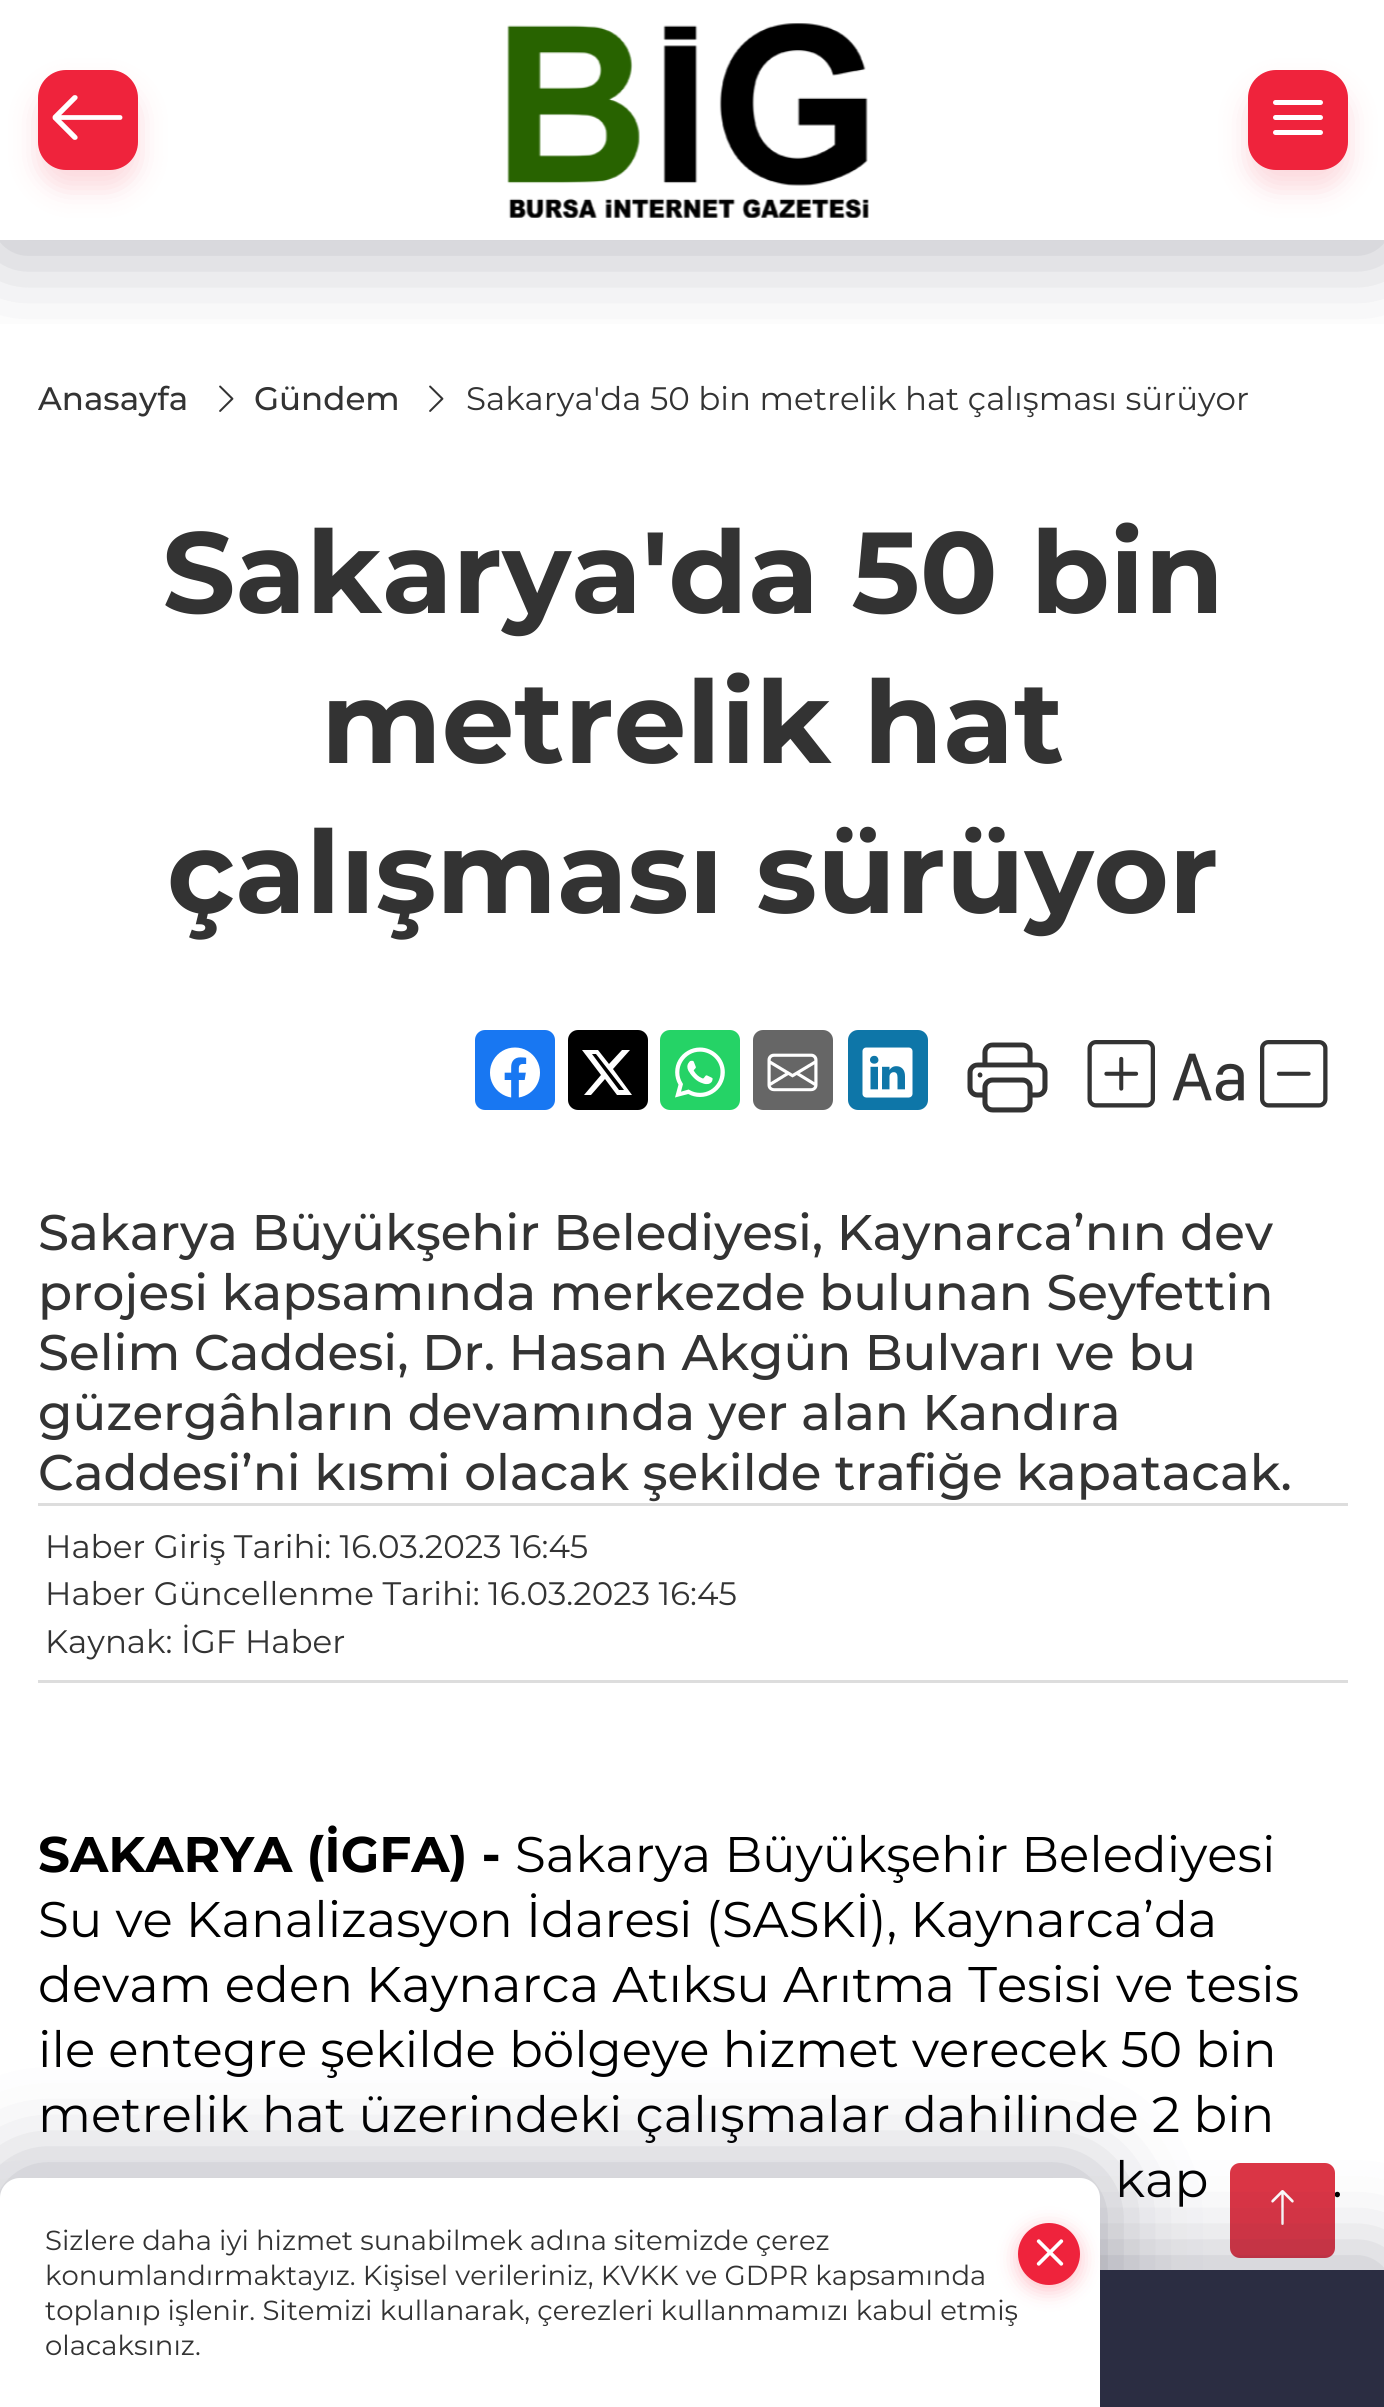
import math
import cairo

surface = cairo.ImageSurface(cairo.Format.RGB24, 1384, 2407)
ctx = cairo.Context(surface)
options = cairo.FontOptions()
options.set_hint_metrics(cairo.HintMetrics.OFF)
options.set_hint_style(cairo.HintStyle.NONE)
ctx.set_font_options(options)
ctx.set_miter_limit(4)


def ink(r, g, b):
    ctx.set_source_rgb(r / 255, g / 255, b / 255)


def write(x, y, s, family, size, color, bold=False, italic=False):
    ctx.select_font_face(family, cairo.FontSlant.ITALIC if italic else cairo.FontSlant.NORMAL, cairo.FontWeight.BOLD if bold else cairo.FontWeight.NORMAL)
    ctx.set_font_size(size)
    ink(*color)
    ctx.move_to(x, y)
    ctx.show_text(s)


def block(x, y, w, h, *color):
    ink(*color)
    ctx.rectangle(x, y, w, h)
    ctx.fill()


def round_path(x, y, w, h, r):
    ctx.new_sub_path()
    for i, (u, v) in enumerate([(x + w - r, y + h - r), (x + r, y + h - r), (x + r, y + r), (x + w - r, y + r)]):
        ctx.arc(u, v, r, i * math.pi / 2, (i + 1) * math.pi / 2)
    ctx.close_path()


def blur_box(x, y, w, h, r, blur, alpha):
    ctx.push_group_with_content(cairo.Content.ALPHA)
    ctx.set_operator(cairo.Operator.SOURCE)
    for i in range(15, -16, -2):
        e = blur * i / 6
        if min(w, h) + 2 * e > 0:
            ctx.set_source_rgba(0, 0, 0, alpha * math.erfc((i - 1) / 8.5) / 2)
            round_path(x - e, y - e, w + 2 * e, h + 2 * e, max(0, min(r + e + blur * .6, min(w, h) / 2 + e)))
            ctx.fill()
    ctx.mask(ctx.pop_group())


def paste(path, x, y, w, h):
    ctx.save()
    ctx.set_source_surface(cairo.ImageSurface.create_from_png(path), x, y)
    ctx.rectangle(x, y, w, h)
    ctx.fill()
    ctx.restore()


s1 = dict(family="Montserrat Medium", size=32.5, color=(51, 51, 51))
s2 = dict(family="Montserrat", size=32.5, color=(51, 51, 51))
s3 = dict(family="Montserrat", size=115, color=(51, 51, 51), bold=True)
s4 = dict(family="Montserrat Medium", size=50, color=(51, 51, 51))
s5 = dict(family="Montserrat", size=50, color=(0, 0, 0), bold=True)
s6 = dict(family="Montserrat", size=50, color=(0, 0, 0))
s7 = dict(family="Montserrat", size=27.5, color=(51, 51, 51))

ink(255, 255, 255)
ctx.paint()
paste("pic3.png", 219, 385, 15, 27)
paste("pic3.png", 429, 385, 15, 27)
ctx.save()
ctx.rectangle(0, 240, 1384, 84)
ctx.clip()
ink(43, 45, 66)
blur_box(0, 8, 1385, 240, 0, 47.5, 0.36)
ctx.restore()
ink(239, 35, 60)
blur_box(38, 88, 100, 100, 28, 14, 0.18)
ink(239, 35, 60)
round_path(38, 70, 100, 100, 28)
ctx.fill()
paste("pic1.png", 52, 95, 71, 45)
paste("pic2.png", 507, 23, 362, 195)
ink(239, 35, 60)
blur_box(1248, 88, 100, 100, 28, 14, 0.18)
ink(239, 35, 60)
round_path(1248, 70, 100, 100, 28)
ctx.fill()
ink(255, 255, 255)
round_path(1273, 115, 50, 5, 2.5)
ctx.fill()
round_path(1273, 100, 50, 5, 2.5)
ctx.fill()
round_path(1273, 130, 50, 5, 2.5)
ctx.fill()
write(38, 410, "Anasayfa", **s1)
write(254, 410, "Gündem", **s1)
write(466, 410, "Sakarya'da 50 bin metrelik hat çalışması sürüyor", **s2)
write(162, 613, "Sakarya'da 50 bin", **s3)
write(321, 763, "metrelik hat", **s3)
write(167, 913, "çalışması sürüyor", **s3)
ink(24, 119, 242)
round_path(475, 1030, 80, 80, 10)
ctx.fill()
paste("pic4.png", 490, 1047, 50, 51)
ink(0, 0, 0)
round_path(568, 1030, 80, 80, 10)
ctx.fill()
ink(255, 255, 255)
ctx.new_path()
ctx.move_to(622, 1050)
ctx.line_to(630, 1050)
ctx.line_to(613, 1069)
ctx.line_to(632, 1095)
ctx.line_to(617, 1095)
ctx.line_to(605, 1079)
ctx.line_to(591, 1095)
ctx.line_to(584, 1095)
ctx.line_to(601, 1075)
ctx.line_to(582, 1050)
ctx.line_to(598, 1050)
ctx.line_to(609, 1064)
ctx.close_path()
ctx.move_to(619, 1090)
ctx.line_to(624, 1090)
ctx.line_to(596, 1054)
ctx.line_to(592, 1054)
ctx.close_path()
ctx.fill()
ink(37, 211, 102)
round_path(660, 1030, 80, 80, 10)
ctx.fill()
paste("pic5.png", 675, 1047, 50, 51)
ink(102, 102, 102)
round_path(753, 1030, 80, 80, 10)
ctx.fill()
paste("pic6.png", 767, 1053, 51, 39)
ink(14, 118, 168)
round_path(848, 1030, 80, 80, 10)
ctx.fill()
paste("pic7.png", 862, 1047, 51, 51)
paste("pic8.png", 967, 1042, 81, 71)
paste("pic9.png", 1087, 1040, 68, 68)
paste("pic10.png", 1172, 1053, 72, 48)
paste("pic11.png", 1260, 1040, 68, 68)
write(38, 1250, "Sakarya Büyükşehir Belediyesi, Kaynarca’nın dev", **s4)
write(38, 1310, "projesi kapsamında merkezde bulunan Seyfettin", **s4)
write(38, 1370, "Selim Caddesi, Dr. Hasan Akgün Bulvarı ve bu", **s4)
write(38, 1430, "güzergâhların devamında yer alan Kandıra", **s4)
write(38, 1490, "Caddesi’ni kısmi olacak şekilde trafiğe kapatacak.", **s4)
block(38, 1503, 1310, 3, 221, 221, 221)
block(38, 1680, 1310, 3, 221, 221, 221)
write(45, 1558, "Haber Giriş Tarihi: 16.03.2023 16:45", **s2)
write(45, 1605, "Haber Güncellenme Tarihi: 16.03.2023 16:45", **s2)
write(45, 1653, "Kaynak: İGF Haber", **s2)
write(38, 1872, "SAKARYA (İGFA) -", **s5)
write(515, 1872, "Sakarya Büyükşehir Belediyesi", **s6)
write(38, 1937, "Su ve Kanalizasyon İdaresi (SASKİ), Kaynarca’da", **s6)
write(38, 2002, "devam eden Kaynarca Atıksu Arıtma Tesisi ve tesis", **s6)
write(38, 2067, "ile entegre şekilde bölgeye hizmet verecek 50 bin", **s6)
write(38, 2132, "metrelik hat üzerindeki çalışmalar dahilinde 2 bin", **s6)
write(1115, 2197, "kap", **s6)
write(1332, 2197, ".", **s6)
ink(220, 53, 69)
round_path(1231.5, 2164.5, 102, 92, 8.5)
ctx.fill_preserve()
ctx.set_line_width(3)
ctx.stroke()
paste("pic12.png", 1271, 2190, 23, 35)
ink(43, 45, 66)
blur_box(0, 2263, 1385, 137, 0, 47.5, 0.36)
block(1100, 2270, 284, 137, 43, 45, 66)
ink(43, 45, 66)
blur_box(0, 2170, 1100, 230, 20, 47.5, 0.36)
ink(255, 255, 255)
ctx.new_path()
ctx.move_to(20, 2178)
ctx.line_to(1080, 2178)
ctx.curve_to(1091, 2178, 1100, 2187, 1100, 2198)
ctx.line_to(1100, 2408)
ctx.line_to(0, 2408)
ctx.line_to(0, 2198)
ctx.curve_to(0, 2187, 9, 2178, 20, 2178)
ctx.close_path()
ctx.fill()
write(45, 2250, "Sizlere daha iyi hizmet sunabilmek adına sitemizde çerez", **s7)
ink(255, 86, 106)
blur_box(1018, 2228, 62, 62, 31, 10, 0.38)
ink(239, 35, 60)
ctx.arc(1049, 2254, 31, 0, 2 * math.pi)
ctx.fill()
paste("pic13.png", 1036, 2239, 28, 27)
write(45, 2285, "konumlandırmaktayız. Kişisel verileriniz, KVKK ve GDPR kapsamında", **s7)
write(45, 2320, "toplanıp işlenir. Sitemizi kullanarak, çerezleri kullanmamızı kabul etmiş", **s7)
write(45, 2355, "olacaksınız.", **s7)
surface.write_to_png("screenshot.png")
